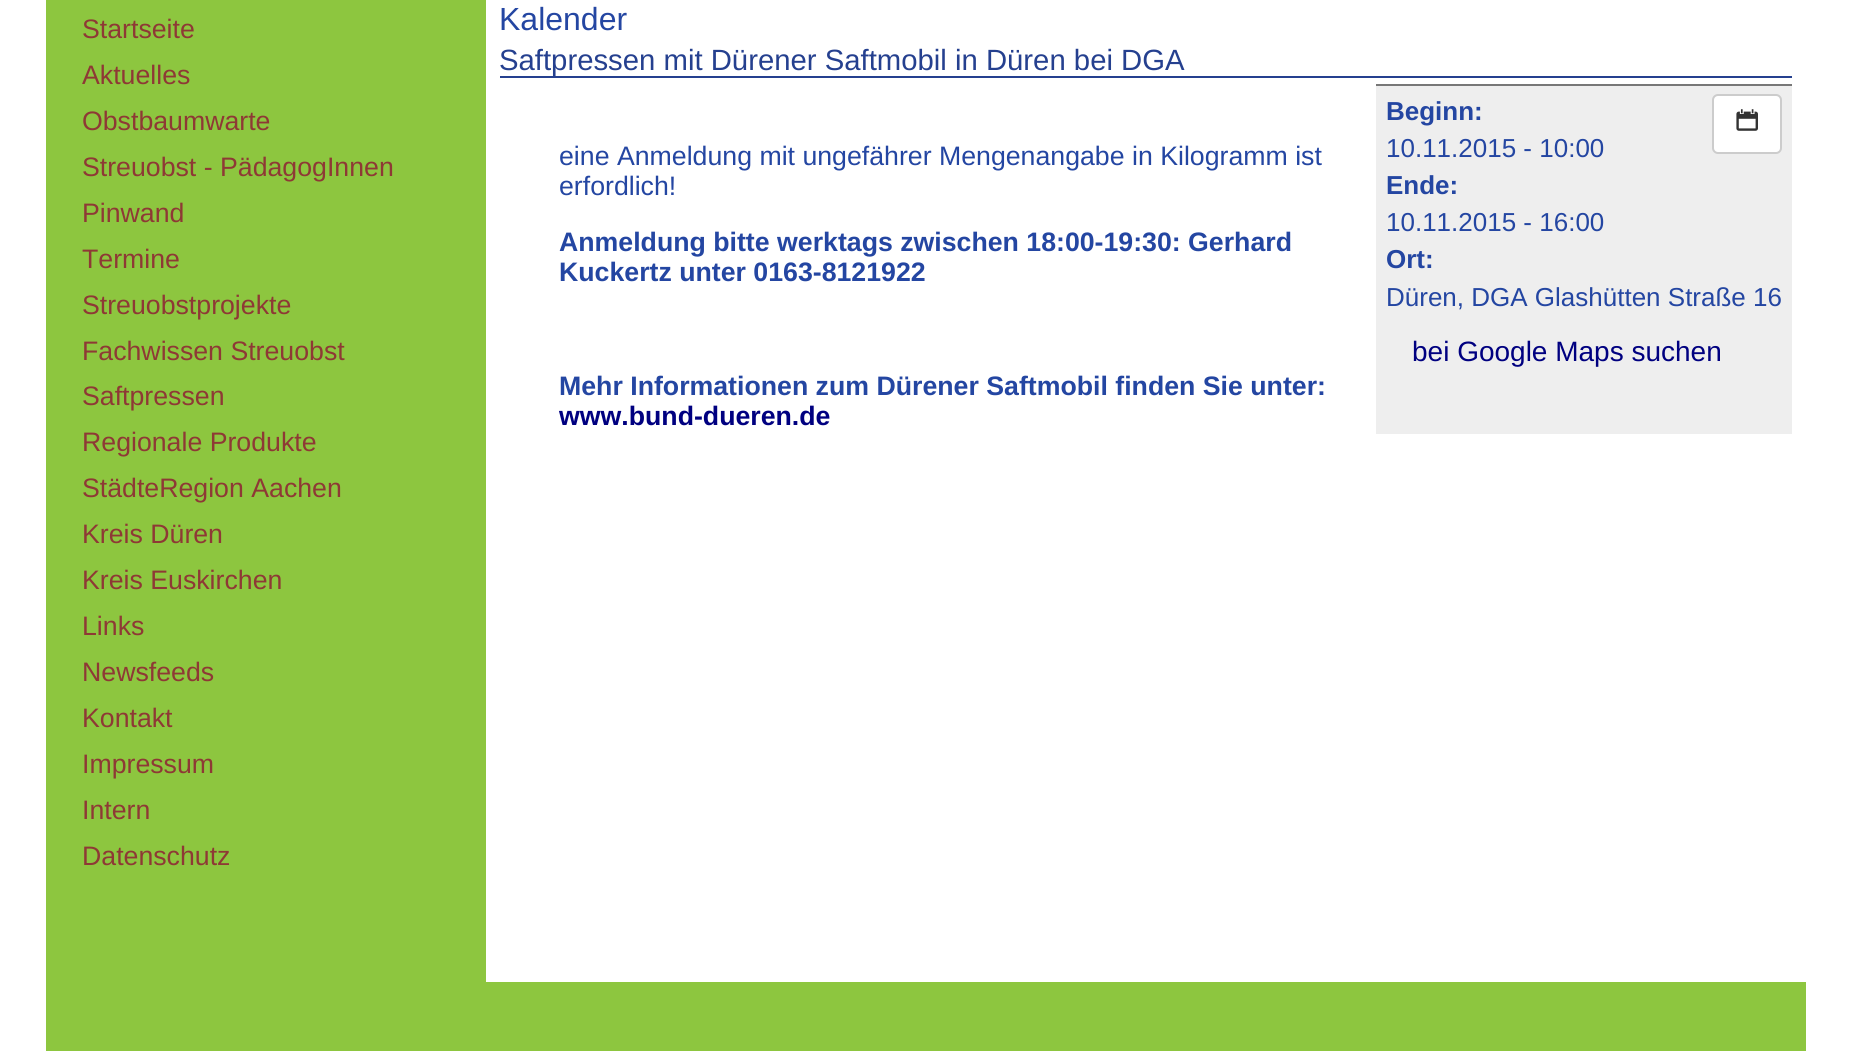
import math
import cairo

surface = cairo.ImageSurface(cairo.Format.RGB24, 1851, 1051)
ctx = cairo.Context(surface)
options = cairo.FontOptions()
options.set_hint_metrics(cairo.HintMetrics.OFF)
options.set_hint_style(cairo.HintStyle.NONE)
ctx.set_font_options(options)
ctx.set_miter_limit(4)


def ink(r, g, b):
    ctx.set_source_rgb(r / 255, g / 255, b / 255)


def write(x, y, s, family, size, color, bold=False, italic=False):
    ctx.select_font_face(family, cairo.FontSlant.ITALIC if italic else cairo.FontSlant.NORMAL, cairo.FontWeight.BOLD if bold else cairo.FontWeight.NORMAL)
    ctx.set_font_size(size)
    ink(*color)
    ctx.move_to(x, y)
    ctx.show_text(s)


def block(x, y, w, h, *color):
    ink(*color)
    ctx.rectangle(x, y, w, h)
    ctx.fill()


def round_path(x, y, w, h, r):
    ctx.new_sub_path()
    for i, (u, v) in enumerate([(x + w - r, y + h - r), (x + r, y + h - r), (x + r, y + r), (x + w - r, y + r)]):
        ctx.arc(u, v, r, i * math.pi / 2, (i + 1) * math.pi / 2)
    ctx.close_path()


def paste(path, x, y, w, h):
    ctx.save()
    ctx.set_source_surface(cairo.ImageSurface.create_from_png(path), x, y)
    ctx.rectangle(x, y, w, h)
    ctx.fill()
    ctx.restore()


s1 = dict(family="Liberation Sans", size=26.7, color=(142, 57, 53))
s2 = dict(family="Liberation Sans", size=32, color=(36, 70, 162))
s3 = dict(family="Liberation Sans", size=29.3, color=(37, 64, 143))
s4 = dict(family="Liberation Sans", size=26.7, color=(36, 70, 162))
s5 = dict(family="Liberation Sans", size=26, color=(36, 70, 162), bold=True)
s6 = dict(family="Liberation Sans", size=26, color=(36, 70, 162))
s7 = dict(family="Liberation Sans", size=28, color=(0, 0, 128))
s8 = dict(family="Liberation Sans", size=26.7, color=(36, 70, 162), bold=True)
s9 = dict(family="Liberation Sans", size=26.7, color=(0, 0, 128), bold=True)

ink(255, 255, 255)
ctx.paint()
block(46, 0, 1760, 1051, 141, 198, 63)
write(82, 38, "Startseite", **s1)
write(82, 84, "Aktuelles", **s1)
write(82, 130, "Obstbaumwarte", **s1)
write(82, 176, "Streuobst - PädagogInnen", **s1)
write(82, 222, "Pinwand", **s1)
write(82, 268, "Termine", **s1)
write(82, 314, "Streuobstprojekte", **s1)
write(82, 360, "Fachwissen Streuobst", **s1)
write(82, 405, "Saftpressen", **s1)
write(82, 451, "Regionale Produkte", **s1)
write(82, 497, "StädteRegion Aachen", **s1)
write(82, 543, "Kreis Düren", **s1)
write(82, 589, "Kreis Euskirchen", **s1)
write(82, 635, "Links", **s1)
write(82, 681, "Newsfeeds", **s1)
write(82, 727, "Kontakt", **s1)
write(82, 773, "Impressum", **s1)
write(82, 819, "Intern", **s1)
write(82, 865, "Datenschutz", **s1)
block(486, 0, 1320, 982, 255, 255, 255)
write(499, 30, "Kalender", **s2)
block(500, 76, 1292, 2, 37, 64, 143)
write(499, 70, "Saftpressen mit Dürener Saftmobil in Düren bei DGA", **s3)
write(559, 165, "eine Anmeldung mit ungefährer Mengenangabe in Kilogramm ist", **s4)
write(559, 195, "erfordlich!", **s4)
block(1376, 86, 416, 348, 238, 238, 238)
block(1376, 84, 416, 2, 119, 119, 119)
ink(255, 255, 255)
round_path(1713, 95, 68, 58, 5)
ctx.fill_preserve()
ink(204, 204, 204)
ctx.stroke()
paste("pic1.png", 1736, 109, 22, 22)
write(1386, 120, "Beginn:", **s5)
write(1386, 157, "10.11.2015 - 10:00", **s6)
write(1386, 194, "Ende:", **s5)
write(1386, 231, "10.11.2015 - 16:00", **s6)
write(1386, 268, "Ort:", **s5)
write(1386, 306, "Düren, DGA Glashütten Straße 16", **s6)
write(1412, 361, "bei Google Maps suchen", **s7)
write(559, 251, "Anmeldung bitte werktags zwischen 18:00-19:30: Gerhard", **s8)
write(559, 281, "Kuckertz unter 0163-8121922", **s8)
write(559, 395, "Mehr Informationen zum Dürener Saftmobil finden Sie unter:", **s8)
write(559, 425, "www.bund-dueren.de", **s9)
surface.write_to_png("screenshot.png")
